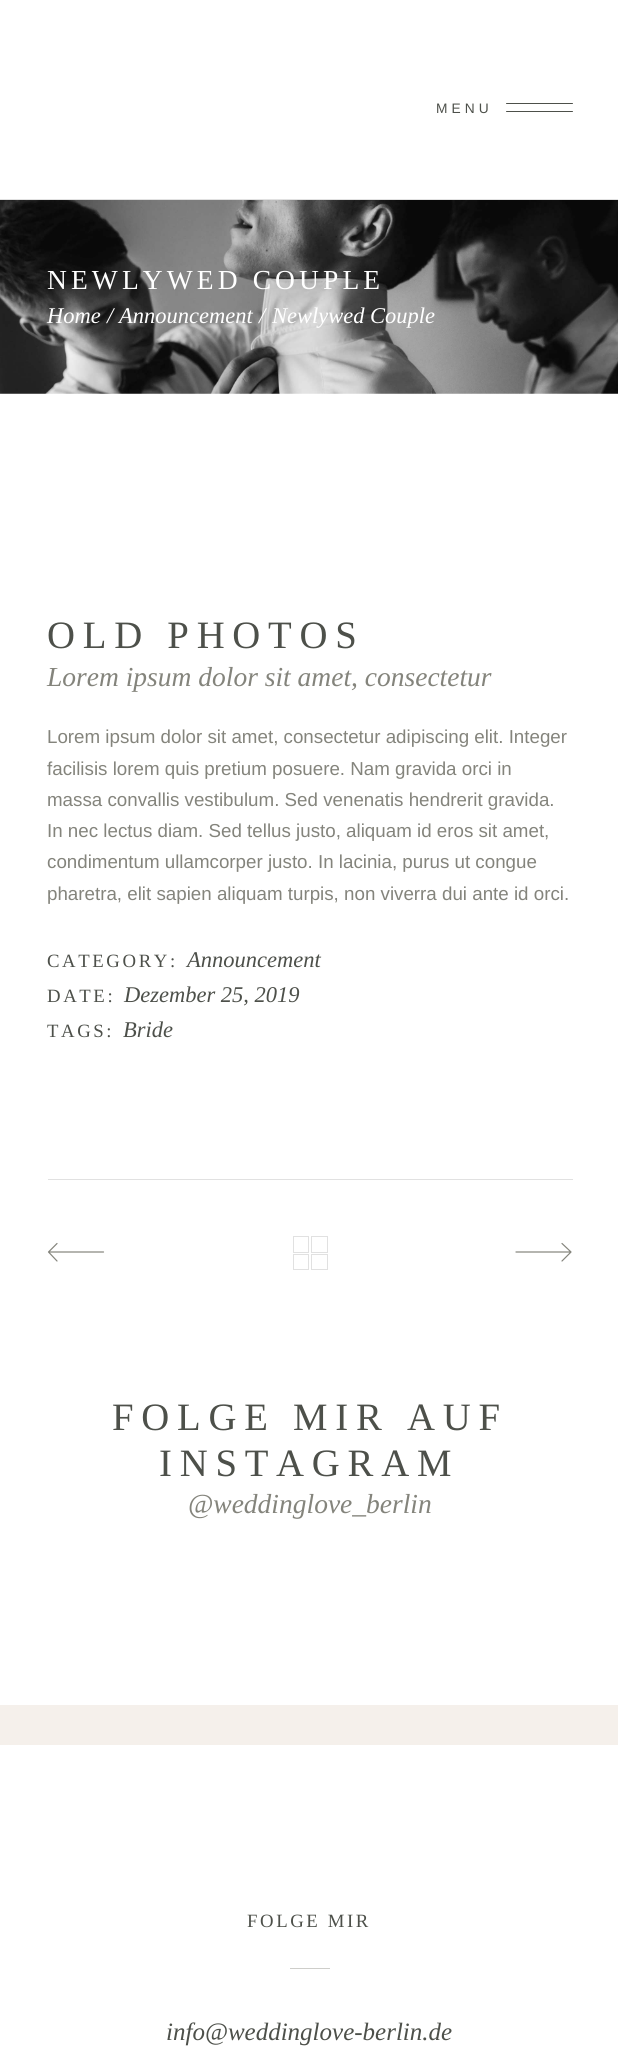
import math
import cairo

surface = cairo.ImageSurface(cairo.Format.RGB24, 618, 2060)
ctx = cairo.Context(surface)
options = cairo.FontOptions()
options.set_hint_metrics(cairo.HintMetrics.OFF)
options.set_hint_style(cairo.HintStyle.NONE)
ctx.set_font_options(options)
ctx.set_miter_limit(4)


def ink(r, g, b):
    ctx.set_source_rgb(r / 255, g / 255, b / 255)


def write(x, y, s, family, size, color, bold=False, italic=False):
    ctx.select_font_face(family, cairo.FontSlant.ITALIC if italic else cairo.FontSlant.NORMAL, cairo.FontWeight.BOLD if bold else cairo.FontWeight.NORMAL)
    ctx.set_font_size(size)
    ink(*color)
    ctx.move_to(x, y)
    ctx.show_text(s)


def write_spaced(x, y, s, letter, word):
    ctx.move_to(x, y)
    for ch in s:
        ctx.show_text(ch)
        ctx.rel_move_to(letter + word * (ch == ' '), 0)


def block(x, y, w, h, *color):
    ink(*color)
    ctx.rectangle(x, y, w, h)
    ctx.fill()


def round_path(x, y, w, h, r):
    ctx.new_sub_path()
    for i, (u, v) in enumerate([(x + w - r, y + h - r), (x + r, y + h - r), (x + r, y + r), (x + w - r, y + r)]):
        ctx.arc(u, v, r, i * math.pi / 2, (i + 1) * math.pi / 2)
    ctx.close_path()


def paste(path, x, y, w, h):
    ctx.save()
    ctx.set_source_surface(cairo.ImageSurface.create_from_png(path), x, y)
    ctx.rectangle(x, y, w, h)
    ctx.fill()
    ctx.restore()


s1 = dict(family="Liberation Serif", size=22.5, color=(255, 255, 255), italic=True)
s2 = dict(family="Liberation Serif", size=27.5, color=(132, 132, 124), italic=True)
s3 = dict(family="Liberation Sans", size=18.75, color=(132, 132, 124))
s4 = dict(family="Liberation Serif", size=22.5, color=(77, 80, 74), italic=True)
s5 = dict(family="Liberation Serif", size=25, color=(77, 80, 74), italic=True)

ink(255, 255, 255)
ctx.paint()
block(0, 199, 618, 1, 225, 225, 225)
ctx.select_font_face("Liberation Sans")
ctx.set_font_size(13.75)
ink(77, 80, 74)
write_spaced(436, 113, "MENU", 4.1, 0)
round_path(506, 103, 67, 1, 0.5)
ctx.fill()
round_path(506, 111, 67, 1, 0.5)
ctx.fill()
paste("pic1.png", 0, 200, 618, 194)
ctx.select_font_face("Liberation Serif")
ctx.set_font_size(27.5)
ink(255, 255, 255)
write_spaced(47, 289, "NEWLYWED COUPLE", 4.1, 0)
write(47, 323, "Home", **s1)
write(107, 323, "/", **s1)
write(119, 323, "Announcement", **s1)
write(259, 323, "/", **s1)
write(272, 323, "Newlywed Couple", **s1)
ctx.select_font_face("Liberation Serif")
ctx.set_font_size(38.75)
ink(77, 80, 74)
write_spaced(47, 648, "OLD PHOTOS", 7.75, 0)
write(47, 686, "Lorem ipsum dolor sit amet, consectetur", **s2)
write(47, 743, "Lorem ipsum dolor sit amet, consectetur adipiscing elit. Integer", **s3)
write(47, 775, "facilisis lorem quis pretium posuere. Nam gravida orci in", **s3)
write(47, 806, "massa convallis vestibulum. Sed venenatis hendrerit gravida.", **s3)
write(47, 837, "In nec lectus diam. Sed tellus justo, aliquam id eros sit amet,", **s3)
write(47, 868, "condimentum ullamcorper justo. In lacinia, purus ut congue", **s3)
write(47, 900, "pharetra, elit sapien aliquam turpis, non viverra dui ante id orci.", **s3)
ctx.select_font_face("Liberation Serif")
ink(77, 80, 74)
write_spaced(47, 967, "CATEGORY:", 2.6, 0)
write(187, 967, "Announcement", **s4)
ctx.select_font_face("Liberation Serif")
ctx.set_font_size(18.75)
write_spaced(47, 1002, "DATE:", 2.6, 0)
write(124, 1002, "Dezember 25, 2019", **s4)
ctx.select_font_face("Liberation Serif")
ctx.set_font_size(18.75)
write_spaced(47, 1037, "TAGS:", 2.6, 0)
write(123, 1037, "Bride", **s4)
block(48, 1179, 525, 1, 225, 225, 225)
ctx.new_path()
ctx.move_to(103.5, 1252)
ctx.line_to(48.5, 1252)
ctx.move_to(57, 1261)
ctx.line_to(48.5, 1252)
ctx.line_to(57, 1243.5)
ink(132, 132, 124)
ctx.set_line_width(1.2)
ctx.set_line_cap(cairo.LineCap.ROUND)
ctx.set_line_join(cairo.LineJoin.ROUND)
ctx.stroke()
ctx.rectangle(293.5, 1236.5, 15, 16)
ink(225, 225, 225)
ctx.set_line_width(1)
ctx.set_line_cap(cairo.LineCap.BUTT)
ctx.set_line_join(cairo.LineJoin.MITER)
ctx.stroke()
ctx.rectangle(311.5, 1236.5, 16, 16)
ctx.stroke()
ctx.rectangle(293.5, 1254.5, 15, 15)
ctx.stroke()
ctx.rectangle(311.5, 1254.5, 16, 15)
ctx.stroke()
ctx.new_path()
ctx.move_to(516, 1252)
ctx.line_to(571, 1252)
ctx.move_to(562, 1243.5)
ctx.line_to(571, 1252)
ctx.line_to(562, 1261)
ink(132, 132, 124)
ctx.set_line_width(1.2)
ctx.set_line_cap(cairo.LineCap.ROUND)
ctx.set_line_join(cairo.LineJoin.ROUND)
ctx.stroke()
ctx.select_font_face("Liberation Serif")
ctx.set_font_size(38.75)
ink(77, 80, 74)
write_spaced(112, 1430, "FOLGE MIR AUF", 7.75, 0)
write_spaced(159, 1476, "INSTAGRAM", 7.75, 0)
write(188, 1513, "@weddinglove_berlin", **s2)
block(0, 1705, 618, 40, 245, 240, 235)
ctx.select_font_face("Liberation Serif")
ctx.set_font_size(18.75)
ink(77, 80, 74)
write_spaced(247, 1927, "FOLGE MIR", 2.6, 0)
block(290, 1968, 40, 1, 206, 206, 202)
write(166, 2040, "info@weddinglove-berlin.de", **s5)
surface.write_to_png("screenshot.png")
